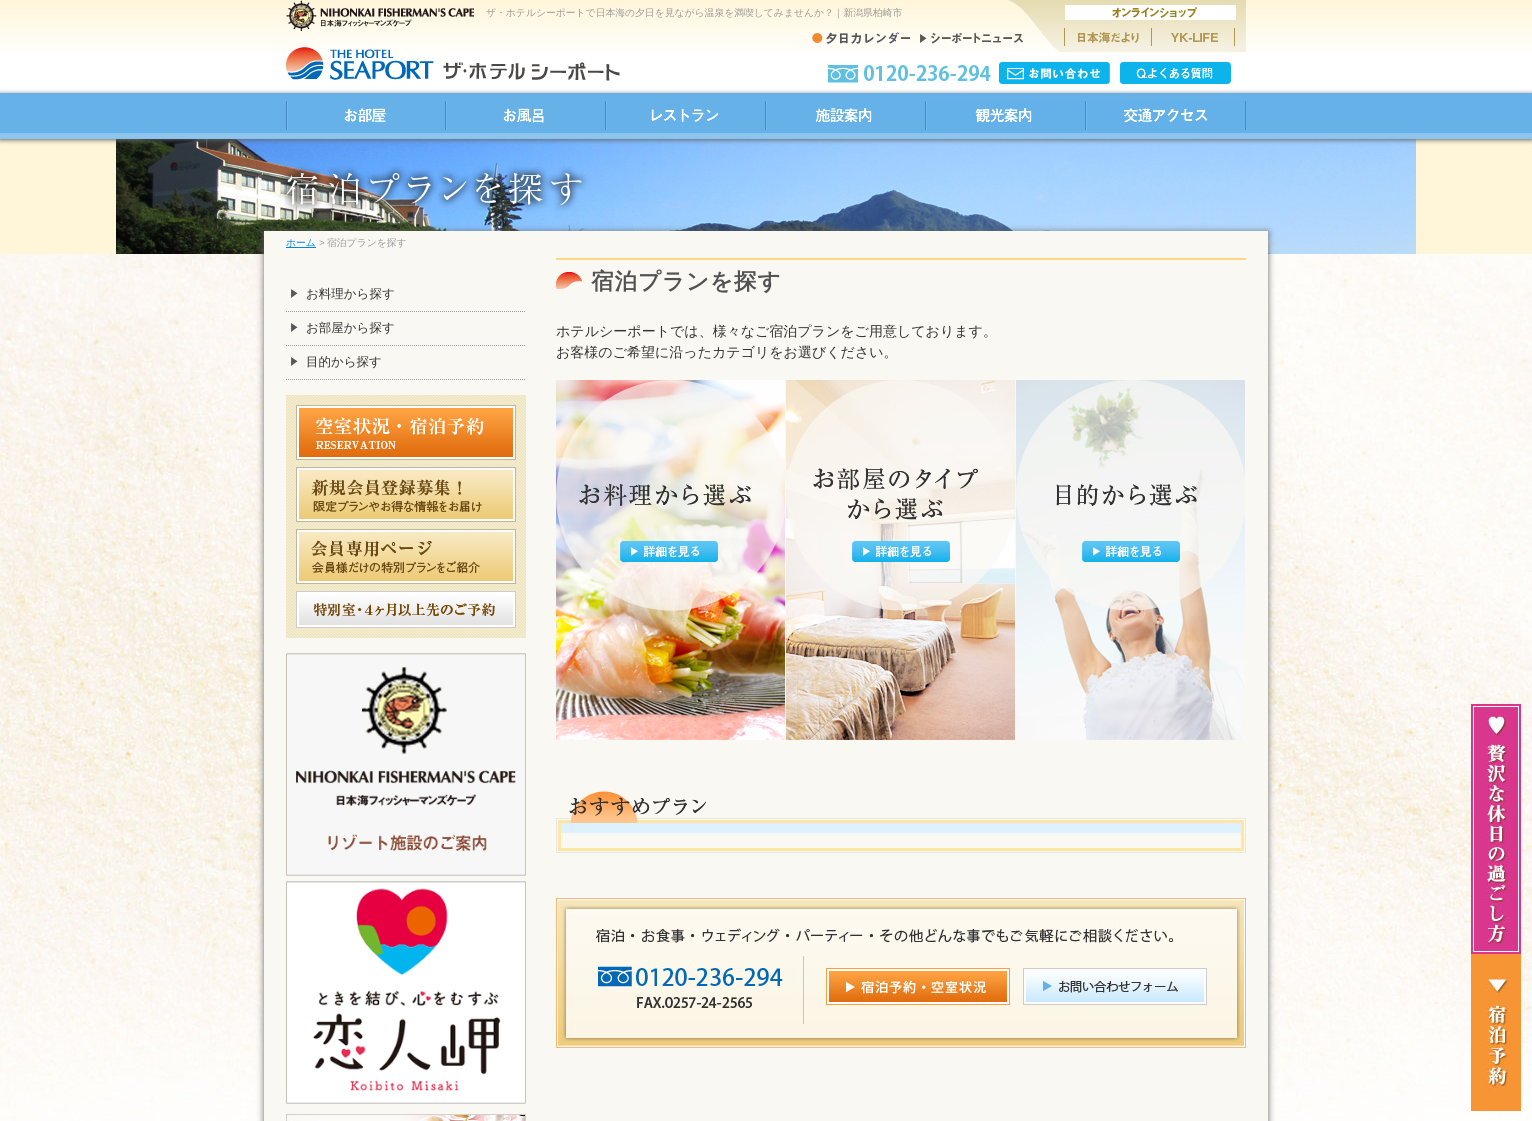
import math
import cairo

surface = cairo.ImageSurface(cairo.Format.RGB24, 1532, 1121)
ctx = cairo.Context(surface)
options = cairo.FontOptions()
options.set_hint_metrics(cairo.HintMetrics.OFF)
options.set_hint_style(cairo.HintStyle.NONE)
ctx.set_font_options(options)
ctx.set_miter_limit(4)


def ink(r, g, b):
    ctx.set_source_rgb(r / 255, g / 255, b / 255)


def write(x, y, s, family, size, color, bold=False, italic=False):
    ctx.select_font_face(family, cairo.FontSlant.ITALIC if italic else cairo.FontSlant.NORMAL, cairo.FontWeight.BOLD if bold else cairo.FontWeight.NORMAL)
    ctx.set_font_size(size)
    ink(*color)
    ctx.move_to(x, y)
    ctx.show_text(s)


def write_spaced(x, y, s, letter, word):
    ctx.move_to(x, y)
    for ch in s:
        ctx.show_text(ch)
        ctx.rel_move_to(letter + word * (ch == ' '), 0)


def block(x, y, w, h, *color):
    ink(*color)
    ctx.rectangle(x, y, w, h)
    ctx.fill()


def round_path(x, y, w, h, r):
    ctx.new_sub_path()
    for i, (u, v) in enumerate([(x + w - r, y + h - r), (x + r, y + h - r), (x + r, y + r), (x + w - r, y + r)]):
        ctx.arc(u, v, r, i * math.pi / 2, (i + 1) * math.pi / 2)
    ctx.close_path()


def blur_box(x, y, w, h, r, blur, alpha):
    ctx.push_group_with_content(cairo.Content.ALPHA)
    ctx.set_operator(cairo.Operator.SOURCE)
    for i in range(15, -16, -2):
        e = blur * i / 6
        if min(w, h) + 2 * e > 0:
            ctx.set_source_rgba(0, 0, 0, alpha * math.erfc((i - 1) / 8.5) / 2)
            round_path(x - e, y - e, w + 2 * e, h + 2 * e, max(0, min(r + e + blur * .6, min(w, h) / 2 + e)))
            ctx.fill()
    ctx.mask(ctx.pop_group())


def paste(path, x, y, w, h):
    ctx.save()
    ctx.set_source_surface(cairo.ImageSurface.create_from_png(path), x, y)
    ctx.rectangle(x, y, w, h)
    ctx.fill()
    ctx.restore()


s1 = dict(family="WenQuanYi Zen Hei Medium", size=9.8, color=(153, 153, 153))
s2 = dict(family="WenQuanYi Zen Hei Medium", size=9.8, color=(0, 133, 231))
s3 = dict(family="Liberation Sans", size=9.8, color=(153, 153, 153))
s4 = dict(family="WenQuanYi Zen Hei Medium", size=12.5, color=(51, 51, 51))
s5 = dict(family="WenQuanYi Zen Hei Medium", size=14, color=(51, 51, 51))

ink(255, 255, 255)
ctx.paint()
paste("pic1.png", 0, 254, 1532, 867)
paste("pic2.png", 0, 0, 1532, 53)
paste("pic3.png", 1008, 0, 238, 52)
paste("pic4.png", 286, 0, 188, 31)
paste("pic5.png", 812, 32, 98, 12)
paste("pic6.png", 920, 33, 103, 11)
paste("pic7.png", 1064, 28, 88, 18)
paste("pic8.png", 1171, 28, 64, 18)
write(486, 16, "ザ・ホテルシーポートで日本海の夕日を見ながら温泉を満喫してみませんか？｜新潟県柏崎市", **s1)
paste("pic9.png", 286, 47, 334, 34)
paste("pic10.png", 828, 65, 163, 18)
paste("pic11.png", 999, 62, 111, 22)
paste("pic12.png", 1120, 62, 111, 22)
block(0, 139, 1532, 115, 255, 245, 216)
paste("pic20.png", 116, 139, 1300, 115)
ink(102, 102, 102)
blur_box(0, 94, 1532, 46, 0, 2.5, 1)
paste("pic13.png", 0, 93, 1532, 46)
paste("pic14.png", 286, 101, 160, 29)
paste("pic15.png", 446, 101, 160, 29)
paste("pic16.png", 606, 101, 160, 29)
paste("pic17.png", 766, 101, 160, 29)
paste("pic18.png", 926, 101, 160, 29)
paste("pic19.png", 1086, 101, 160, 29)
blur_box(264, 232, 1004, 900, 0, 3.5, 1)
block(264, 231, 1004, 890, 250, 248, 243)
write(286, 246, "ホーム", **s2)
block(286, 247, 30, 1, 0, 133, 231)
write(319, 246, ">", **s3)
write(327, 246, "宿泊プランを探す", **s1)
ctx.new_path()
ctx.move_to(286, 311.5)
ctx.line_to(526, 311.5)
ctx.set_line_width(1)
ctx.set_dash([1, 1])
ctx.stroke()
paste("pic21.png", 291, 289, 7, 9)
write(306, 298, "お料理から探す", **s4)
ctx.new_path()
ctx.move_to(286, 345.5)
ctx.line_to(526, 345.5)
ink(153, 153, 153)
ctx.stroke()
paste("pic21.png", 291, 323, 7, 9)
write(306, 332, "お部屋から探す", **s4)
ctx.new_path()
ctx.move_to(286, 379.5)
ctx.line_to(526, 379.5)
ink(153, 153, 153)
ctx.stroke()
paste("pic21.png", 291, 357, 7, 9)
write(306, 366, "目的から探す", **s4)
paste("pic22.png", 286, 395, 240, 243)
paste("pic23.png", 296, 405, 220, 55)
paste("pic24.png", 296, 467, 220, 55)
paste("pic25.png", 296, 529, 220, 55)
paste("pic26.png", 296, 591, 220, 37)
paste("pic27.png", 286, 653, 240, 223)
paste("pic28.png", 286, 881, 240, 223)
paste("pic29.png", 286, 1114, 240, 7)
paste("pic30.png", 556, 272, 26, 17)
block(556, 258, 690, 2, 255, 214, 130)
ctx.select_font_face("WenQuanYi Zen Hei", cairo.FontSlant.NORMAL, cairo.FontWeight.BOLD)
ctx.set_font_size(22.5)
ink(82, 82, 82)
write_spaced(591, 289, "宿泊プランを探す", 1, 0)
write(556, 336, "ホテルシーポートでは、様々なご宿泊プランをご用意しております。", **s5)
write(556, 357, "お客様のご希望に沿ったカテゴリをお選びください。", **s5)
paste("pic31.png", 556, 380, 229, 360)
paste("pic32.png", 786, 380, 229, 360)
paste("pic33.png", 1016, 380, 229, 360)
paste("pic34.png", 556, 823, 690, 30)
paste("pic35.png", 556, 790, 690, 33)
block(561, 823, 680, 10, 222, 241, 254)
paste("pic36.png", 556, 898, 690, 150)
paste("pic37.png", 826, 968, 184, 37)
paste("pic38.png", 1023, 968, 184, 37)
paste("pic39.png", 1471, 704, 50, 250)
paste("pic40.png", 1471, 954, 50, 157)
surface.write_to_png("screenshot.png")
